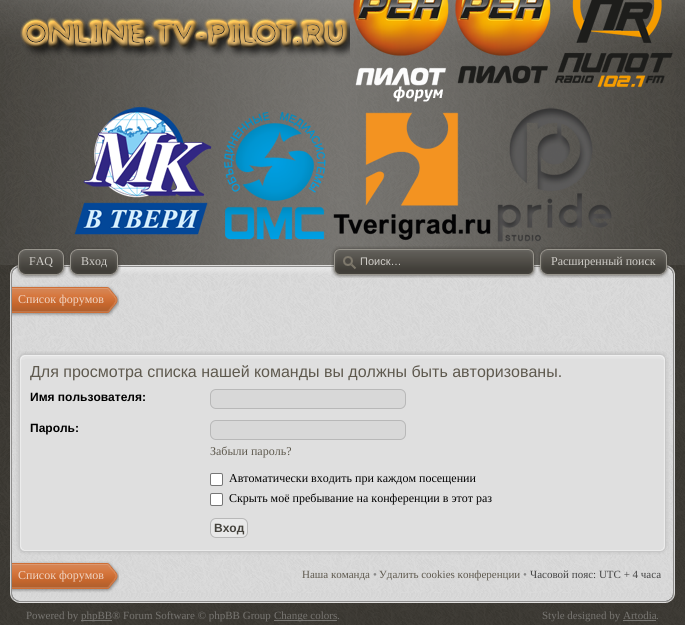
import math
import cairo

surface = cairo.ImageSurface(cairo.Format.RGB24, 685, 625)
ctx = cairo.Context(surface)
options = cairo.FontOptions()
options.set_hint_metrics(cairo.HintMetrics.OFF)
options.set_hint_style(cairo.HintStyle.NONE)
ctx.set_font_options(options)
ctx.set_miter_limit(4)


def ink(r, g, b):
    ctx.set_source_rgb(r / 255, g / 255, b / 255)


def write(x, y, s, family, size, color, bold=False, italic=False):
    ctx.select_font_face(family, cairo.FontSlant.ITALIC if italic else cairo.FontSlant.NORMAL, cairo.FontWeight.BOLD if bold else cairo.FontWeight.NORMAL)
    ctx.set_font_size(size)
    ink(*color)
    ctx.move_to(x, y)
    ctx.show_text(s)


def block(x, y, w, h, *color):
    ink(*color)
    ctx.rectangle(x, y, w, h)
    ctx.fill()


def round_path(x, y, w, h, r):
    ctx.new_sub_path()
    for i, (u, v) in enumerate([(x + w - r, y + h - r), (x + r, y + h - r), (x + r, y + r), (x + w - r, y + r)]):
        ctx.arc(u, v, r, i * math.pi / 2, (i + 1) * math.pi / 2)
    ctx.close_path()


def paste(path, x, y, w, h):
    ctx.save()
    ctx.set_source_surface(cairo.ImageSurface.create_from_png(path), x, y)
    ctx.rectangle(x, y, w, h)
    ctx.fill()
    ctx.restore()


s1 = dict(family="Liberation Serif", size=12, color=(208, 206, 201))
s2 = dict(family="Liberation Sans", size=11, color=(208, 206, 201))
s3 = dict(family="Liberation Serif", size=12, color=(240, 212, 195))
s4 = dict(family="Liberation Sans", size=16, color=(94, 89, 78))
s5 = dict(family="Liberation Sans", size=12, color=(0, 0, 0), bold=True)
s6 = dict(family="Liberation Serif", size=12, color=(94, 89, 78))
s7 = dict(family="Liberation Serif", size=12, color=(0, 0, 0))
s8 = dict(family="Liberation Sans", size=12, color=(69, 67, 61), bold=True)
s9 = dict(family="Liberation Serif", size=11, color=(94, 89, 78))
s10 = dict(family="Liberation Serif", size=11, color=(136, 136, 136))
s11 = dict(family="Liberation Serif", size=11, color=(68, 68, 68))
s12 = dict(family="Liberation Serif", size=11, color=(119, 117, 113))

ink(255, 255, 255)
ctx.paint()
paste("pic1.png", 0, 0, 685, 625)
paste("pic2.png", 0, 0, 685, 265)
paste("pic3.png", 20, 17, 330, 41)
paste("pic4.png", 353, 0, 96, 102)
paste("pic5.png", 455, 0, 96, 84)
paste("pic6.png", 555, 0, 118, 88)
paste("pic7.png", 74, 107, 138, 128)
paste("pic8.png", 224, 111, 102, 129)
paste("pic9.png", 333, 112, 158, 129)
paste("pic10.png", 497, 107, 115, 135)
paste("pic11.png", 10, 265, 665, 10)
block(10, 275, 665, 318, 218, 218, 218)
paste("pic19.png", 11, 275, 663, 318)
paste("pic12.png", 15, 248, 42, 30)
paste("pic13.png", 57, 248, 10, 30)
write(29, 265, "FAQ", **s1)
paste("pic14.png", 67, 247, 44, 31)
paste("pic15.png", 111, 247, 10, 31)
write(81, 265, "Вход", **s1)
paste("pic16.png", 331, 246, 206, 32)
write(360, 265, "Поиск…", **s2)
paste("pic17.png", 537, 247, 123, 31)
paste("pic18.png", 660, 249, 10, 29)
write(551, 265, "Расширенный поиск", **s1)
paste("pic20.png", 104, 285, 15, 32)
paste("pic21.png", 12, 285, 92, 32)
write(18, 303, "Список форумов", **s3)
block(22, 359, 641, 191, 223, 223, 223)
paste("pic22.png", 16, 351, 653, 204)
write(30, 377, "Для просмотра списка нашей команды вы должны быть авторизованы.", **s4)
write(30, 401, "Имя пользователя:", **s5)
ink(216, 216, 216)
round_path(210.5, 389.5, 195, 19, 5.5)
ctx.fill_preserve()
ink(184, 184, 184)
ctx.set_line_width(1)
ctx.stroke()
write(30, 432, "Пароль:", **s5)
ink(216, 216, 216)
round_path(210.5, 420.5, 195, 19, 5.5)
ctx.fill_preserve()
ink(184, 184, 184)
ctx.stroke()
write(210, 455, "Забыли пароль?", **s6)
ink(255, 255, 255)
round_path(210.5, 473.5, 12, 12, 1.5)
ctx.fill_preserve()
ink(118, 118, 118)
ctx.stroke()
write(229, 482, "Автоматически входить при каждом посещении", **s7)
ink(255, 255, 255)
round_path(210.5, 493.5, 12, 12, 1.5)
ctx.fill_preserve()
ink(118, 118, 118)
ctx.stroke()
write(229, 502, "Скрыть моё пребывание на конференции в этот раз", **s7)
ink(232, 232, 232)
round_path(210.5, 518.5, 37, 19, 5.5)
ctx.fill_preserve()
ink(184, 184, 184)
ctx.stroke()
write(214, 532, "Вход", **s8)
paste("pic23.png", 104, 561, 15, 32)
paste("pic24.png", 12, 561, 92, 32)
write(18, 579, "Список форумов", **s3)
write(302, 578, "Наша команда", **s9)
write(373, 578, "•", **s10)
write(379, 578, "Удалить cookies конференции", **s9)
write(523, 578, "•", **s10)
write(530, 578, "Часовой пояс: UTC + 4 часа", **s11)
paste("pic25.png", 10, 593, 665, 10)
write(26, 619, "Powered by", **s12)
ctx.set_source_rgba(1, 1, 1, 0.3)
ctx.rectangle(81, 620, 31, 1)
ctx.fill()
write(81, 619, "phpBB", **s12)
write(112, 619, "® Forum Software © phpBB Group", **s12)
ctx.set_source_rgba(1, 1, 1, 0.3)
ctx.rectangle(274, 620, 63, 1)
ctx.fill()
write(274, 619, "Change colors", **s12)
write(337, 619, ".", **s12)
write(542, 619, "Style designed by Artodia", **s12)
write(656, 619, ".", **s12)
ctx.set_source_rgba(1, 1, 1, 0.3)
ctx.rectangle(623, 620, 33, 1)
ctx.fill()
surface.write_to_png("screenshot.png")
